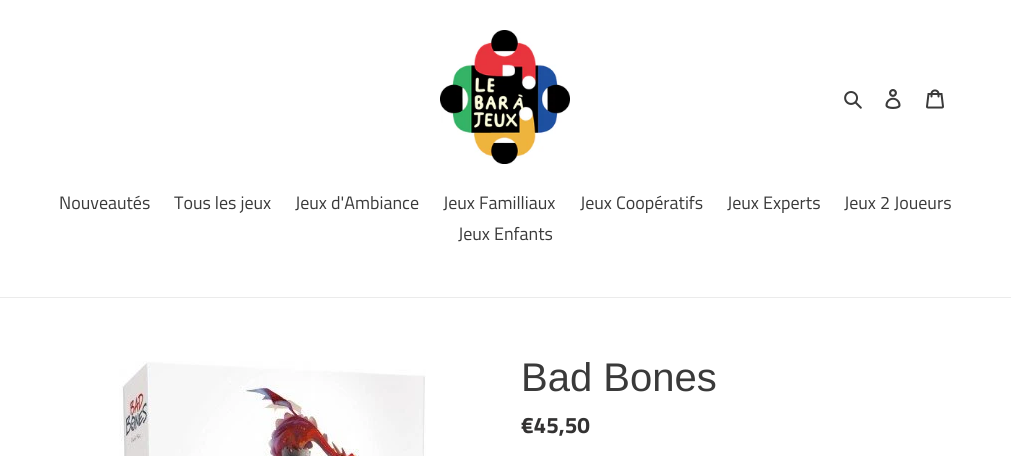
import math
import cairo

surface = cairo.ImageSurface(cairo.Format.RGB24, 1011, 456)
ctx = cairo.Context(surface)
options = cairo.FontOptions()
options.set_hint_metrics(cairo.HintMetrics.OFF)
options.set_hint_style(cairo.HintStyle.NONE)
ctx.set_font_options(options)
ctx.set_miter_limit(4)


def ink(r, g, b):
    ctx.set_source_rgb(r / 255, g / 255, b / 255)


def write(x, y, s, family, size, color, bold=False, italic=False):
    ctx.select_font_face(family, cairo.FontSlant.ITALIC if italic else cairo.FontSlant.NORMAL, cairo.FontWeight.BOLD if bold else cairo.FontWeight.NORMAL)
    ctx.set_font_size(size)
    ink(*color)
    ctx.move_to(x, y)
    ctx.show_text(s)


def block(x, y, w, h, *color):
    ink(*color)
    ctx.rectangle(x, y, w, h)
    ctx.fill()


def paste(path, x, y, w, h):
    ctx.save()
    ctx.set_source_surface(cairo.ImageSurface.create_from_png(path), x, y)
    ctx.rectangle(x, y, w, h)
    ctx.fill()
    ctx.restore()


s1 = dict(family="Titillium Web", size=18, color=(58, 58, 58))
s2 = dict(family="Liberation Sans", size=40, color=(58, 58, 58))
s3 = dict(family="Titillium Web", size=22.5, color=(51, 50, 50), bold=True)

ink(255, 255, 255)
ctx.paint()
paste("pic1.png", 440, 30, 130, 134)
paste("pic2.png", 844, 91, 18, 18)
paste("pic3.png", 885, 89, 16, 20)
paste("pic4.png", 926, 89, 18, 20)
block(0, 297, 1011, 1, 235, 235, 235)
write(59, 209, "Nouveautés", **s1)
write(174, 209, "Tous les jeux", **s1)
write(295, 209, "Jeux d'Ambiance", **s1)
write(443, 209, "Jeux Familliaux", **s1)
write(580, 209, "Jeux Coopératifs", **s1)
write(727, 209, "Jeux Experts", **s1)
write(844, 209, "Jeux 2 Joueurs", **s1)
write(458, 240, "Jeux Enfants", **s1)
paste("pic5.png", 119, 361, 307, 95)
write(521, 391, "Bad Bones", **s2)
write(521, 433, "€45,50", **s3)
surface.write_to_png("screenshot.png")
